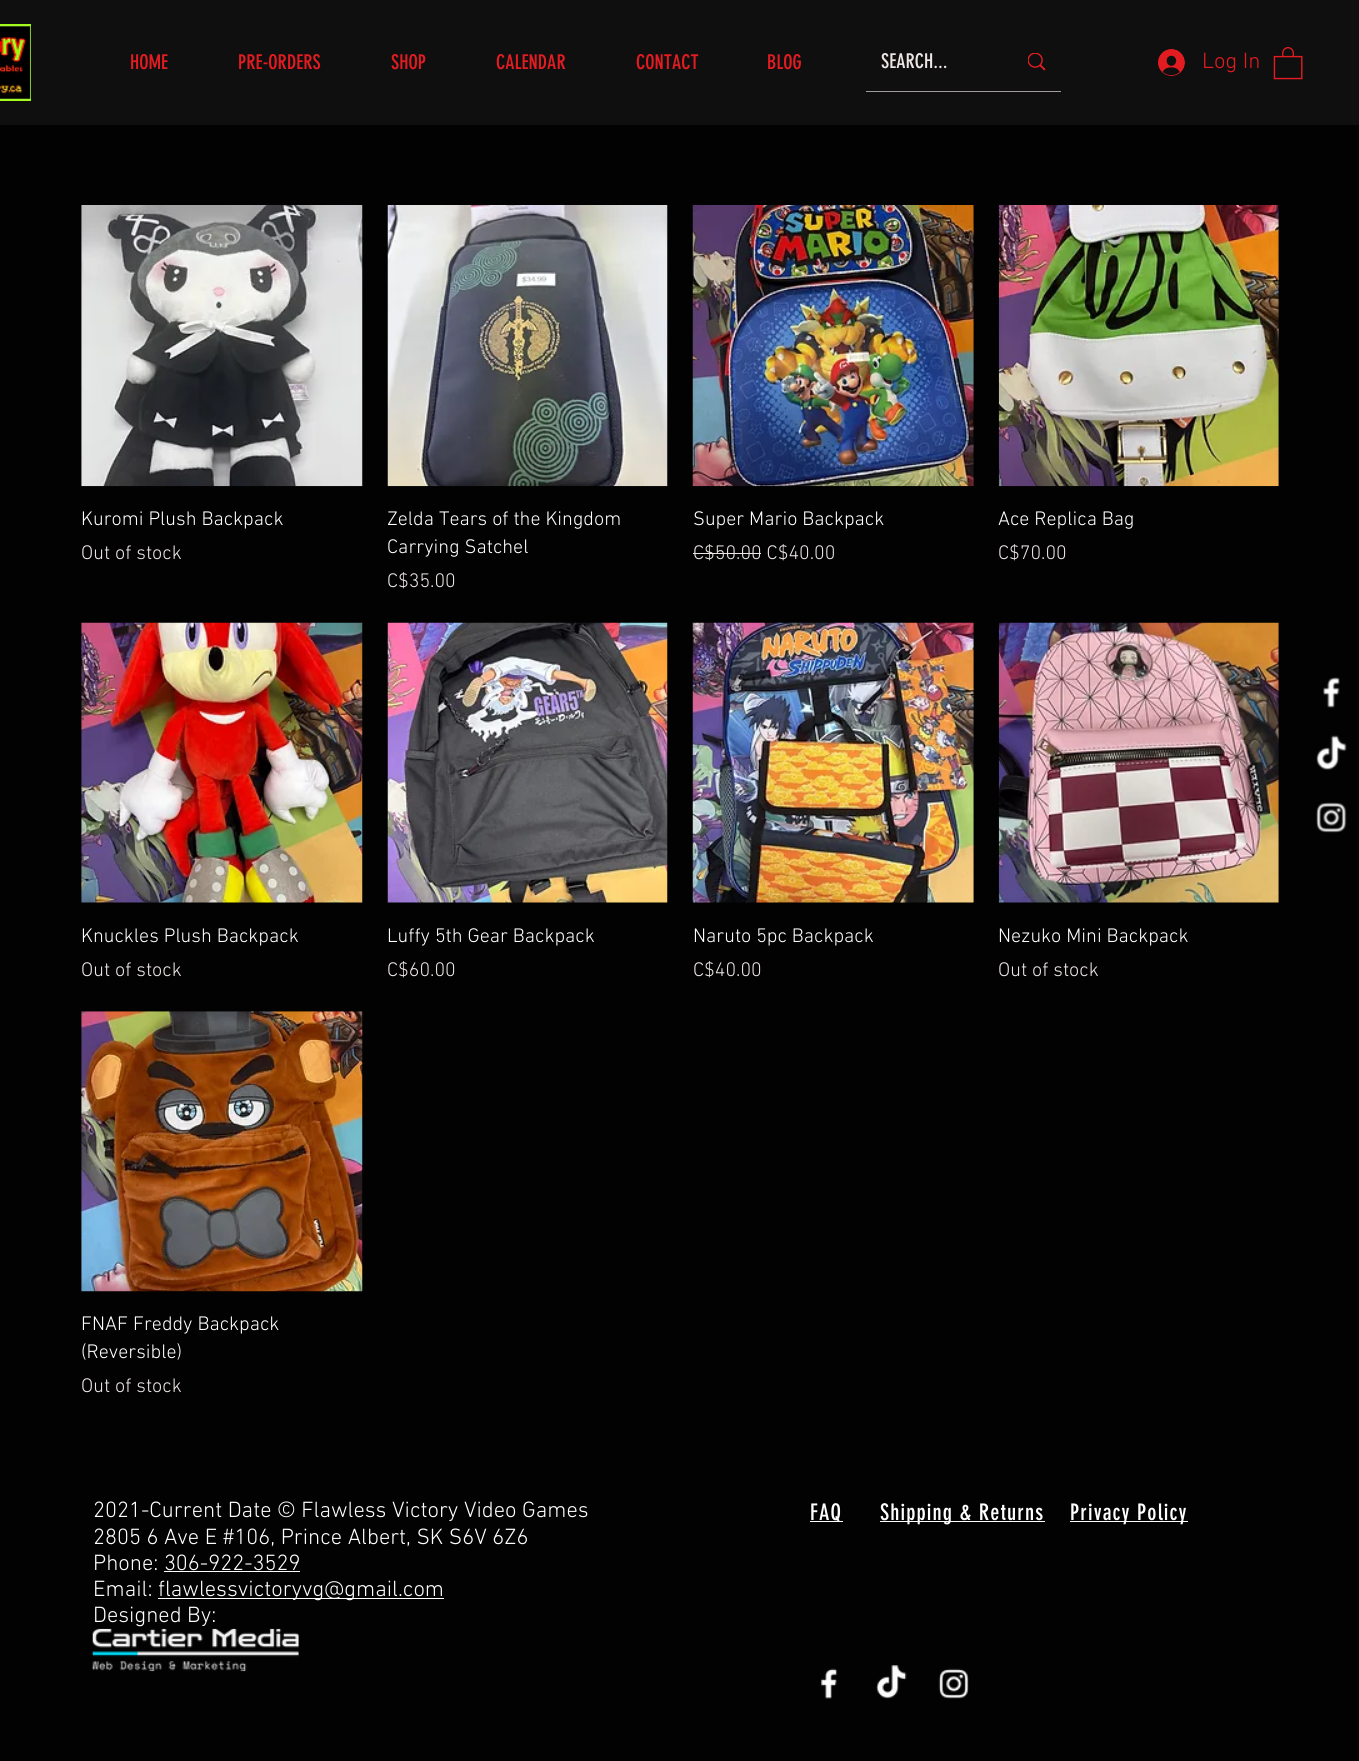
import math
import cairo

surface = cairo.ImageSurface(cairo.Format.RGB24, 1359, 1761)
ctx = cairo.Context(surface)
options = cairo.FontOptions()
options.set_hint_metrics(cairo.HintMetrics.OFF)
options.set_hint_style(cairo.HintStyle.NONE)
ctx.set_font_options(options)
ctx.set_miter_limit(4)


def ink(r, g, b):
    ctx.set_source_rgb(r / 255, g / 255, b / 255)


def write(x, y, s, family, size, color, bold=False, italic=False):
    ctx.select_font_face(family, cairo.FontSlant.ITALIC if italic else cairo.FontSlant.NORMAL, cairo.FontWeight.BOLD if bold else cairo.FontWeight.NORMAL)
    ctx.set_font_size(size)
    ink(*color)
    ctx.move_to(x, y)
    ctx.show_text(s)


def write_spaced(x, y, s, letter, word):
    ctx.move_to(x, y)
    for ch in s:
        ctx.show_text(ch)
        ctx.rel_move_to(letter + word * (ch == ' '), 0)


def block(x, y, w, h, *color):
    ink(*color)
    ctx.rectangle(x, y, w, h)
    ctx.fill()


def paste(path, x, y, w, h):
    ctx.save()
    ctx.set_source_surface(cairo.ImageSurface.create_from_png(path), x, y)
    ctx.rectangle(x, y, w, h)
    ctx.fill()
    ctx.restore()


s1 = dict(family="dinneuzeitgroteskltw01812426", size=20, color=(226, 28, 33))
s2 = dict(family="dinneuzeitgroteskltw01812426", size=20, color=(238, 230, 230))
s3 = dict(family="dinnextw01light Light", size=22.5, color=(226, 28, 33))
s4 = dict(family="dinnextw01light Light", size=20, color=(255, 255, 255))
s5 = dict(family="dinnextw01light Light", size=20, color=(238, 230, 230))
s6 = dict(family="dinnextw01light Light", size=22.5, color=(255, 255, 255))

ink(2, 2, 2)
ctx.paint()
ctx.set_source_rgba(0.078, 0.078, 0.078, 0.8)
ctx.rectangle(0, 0, 1359, 125)
ctx.fill()
paste("pic1.png", 0, 24, 31, 77)
write(130, 69, "HOME", **s1)
write(238, 69, "PRE-ORDERS", **s1)
write(391, 69, "SHOP", **s1)
write(496, 69, "CALENDAR", **s1)
write(636, 69, "CONTACT", **s1)
write(767, 69, "BLOG", **s1)
block(866, 91, 195, 1, 162, 156, 156)
write(881, 68, "SEARCH...", **s2)
paste("pic2.png", 1028, 53, 18, 18)
paste("pic3.png", 1158, 49, 27, 27)
write(1202, 68, "Log In", **s3)
paste("pic4.png", 1273, 47, 30, 33)
paste("pic5.png", 81, 205, 282, 282)
write(81, 525, "Kuromi Plush Backpack", **s4)
write(81, 559, "Out of stock", **s5)
paste("pic6.png", 387, 205, 281, 282)
write(387, 525, "Zelda Tears of the Kingdom", **s4)
write(387, 553, "Carrying Satchel", **s4)
write(387, 587, "C$35.00", **s5)
paste("pic7.png", 692, 205, 282, 282)
write(693, 525, "Super Mario Backpack", **s4)
write(693, 559, "C$50.00 C$40.00", **s5)
block(693, 553, 68, 1, 238, 230, 230)
paste("pic8.png", 998, 205, 281, 282)
write(998, 525, "Ace Replica Bag", **s4)
write(998, 559, "C$70.00", **s5)
paste("pic9.png", 81, 622, 282, 281)
write(81, 942, "Knuckles Plush Backpack", **s4)
write(81, 976, "Out of stock", **s5)
paste("pic10.png", 387, 622, 281, 281)
write(387, 942, "Luffy 5th Gear Backpack", **s4)
write(387, 976, "C$60.00", **s5)
paste("pic11.png", 692, 622, 282, 281)
write(693, 942, "Naruto 5pc Backpack", **s4)
write(693, 976, "C$40.00", **s5)
paste("pic12.png", 998, 622, 281, 281)
write(998, 942, "Nezuko Mini Backpack", **s4)
write(998, 976, "Out of stock", **s5)
paste("pic13.png", 81, 1011, 282, 281)
write(81, 1330, "FNAF Freddy Backpack", **s4)
write(81, 1358, "(Reversible)", **s4)
write(81, 1392, "Out of stock", **s5)
paste("pic14.png", 1323, 677, 17, 31)
paste("pic15.png", 1316, 735, 31, 35)
paste("pic16.png", 1316, 802, 31, 31)
write(93, 1517, "2021-Current Date © Flawless Victory Video Games", **s6)
write(93, 1544, "2805 6 Ave E #106, Prince Albert, SK S6V 6Z6", **s6)
write(93, 1570, "Phone: 306-922-3529", **s6)
block(164, 1571, 136, 1, 255, 255, 255)
write(93, 1596, "Email:", **s6)
block(158, 1598, 286, 1, 255, 255, 255)
write(158, 1596, "flawlessvictoryvg@gmail.com", **s6)
write(93, 1622, "Designed By:", **s6)
block(810, 1521, 33, 1, 255, 255, 255)
ctx.select_font_face("dinneuzeitgroteskltw01812426")
write_spaced(810, 1520, "FAQ", 1.1, 0)
block(880, 1521, 165, 1, 255, 255, 255)
write_spaced(880, 1520, "Shipping & Returns", 1.1, 0)
block(1070, 1521, 118, 1, 255, 255, 255)
write_spaced(1070, 1520, "Privacy Policy", 1.1, 0)
paste("pic17.png", 92, 1628, 207, 44)
paste("pic18.png", 821, 1668, 17, 31)
paste("pic19.png", 876, 1665, 31, 34)
paste("pic20.png", 938, 1668, 31, 31)
surface.write_to_png("screenshot.png")
